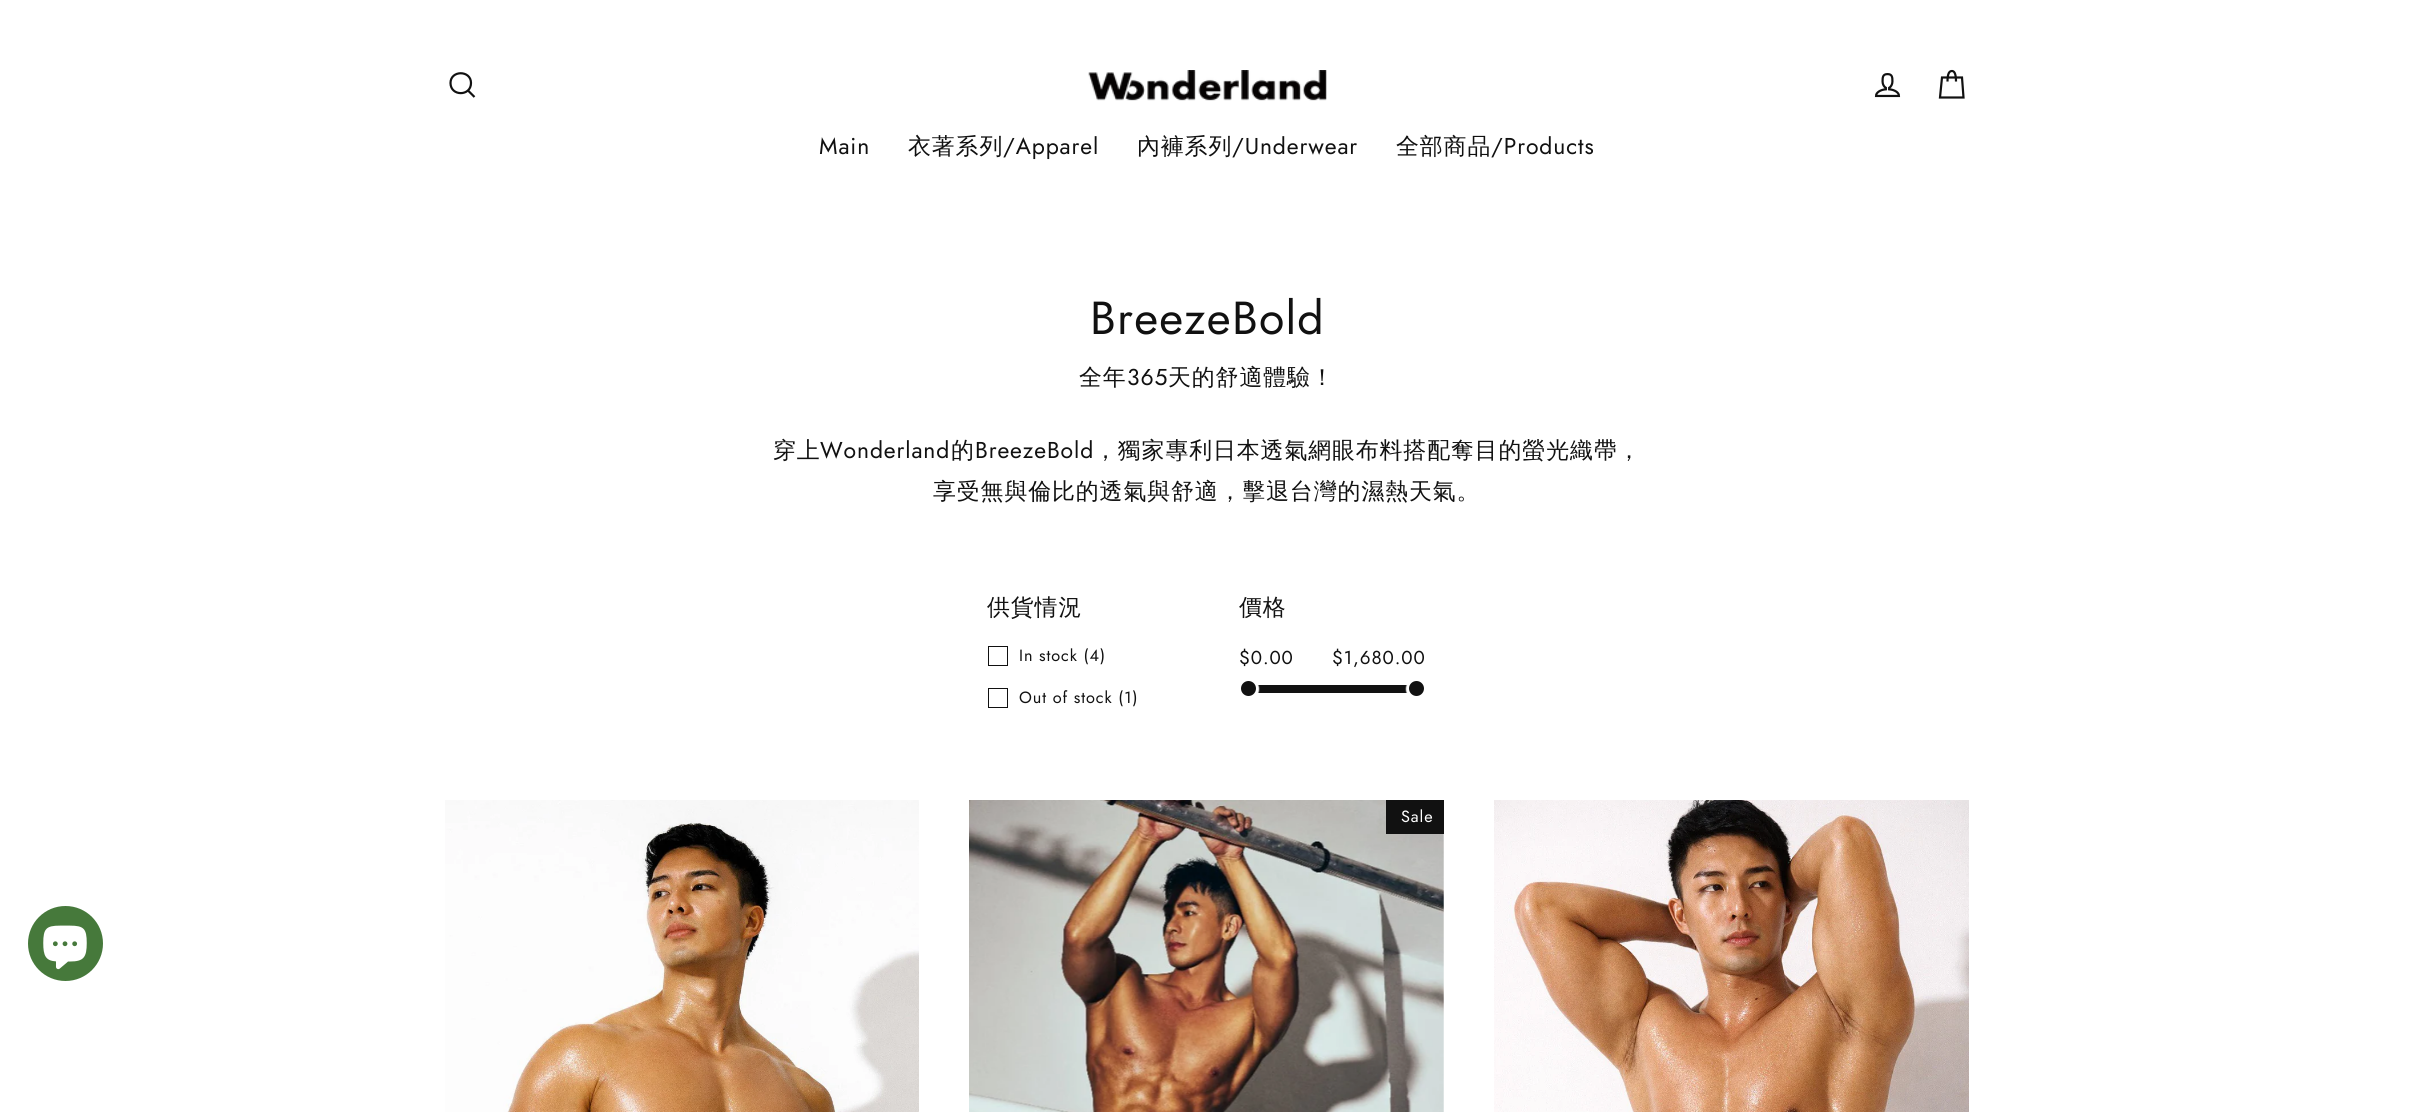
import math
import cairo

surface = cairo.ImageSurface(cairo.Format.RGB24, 2413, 1112)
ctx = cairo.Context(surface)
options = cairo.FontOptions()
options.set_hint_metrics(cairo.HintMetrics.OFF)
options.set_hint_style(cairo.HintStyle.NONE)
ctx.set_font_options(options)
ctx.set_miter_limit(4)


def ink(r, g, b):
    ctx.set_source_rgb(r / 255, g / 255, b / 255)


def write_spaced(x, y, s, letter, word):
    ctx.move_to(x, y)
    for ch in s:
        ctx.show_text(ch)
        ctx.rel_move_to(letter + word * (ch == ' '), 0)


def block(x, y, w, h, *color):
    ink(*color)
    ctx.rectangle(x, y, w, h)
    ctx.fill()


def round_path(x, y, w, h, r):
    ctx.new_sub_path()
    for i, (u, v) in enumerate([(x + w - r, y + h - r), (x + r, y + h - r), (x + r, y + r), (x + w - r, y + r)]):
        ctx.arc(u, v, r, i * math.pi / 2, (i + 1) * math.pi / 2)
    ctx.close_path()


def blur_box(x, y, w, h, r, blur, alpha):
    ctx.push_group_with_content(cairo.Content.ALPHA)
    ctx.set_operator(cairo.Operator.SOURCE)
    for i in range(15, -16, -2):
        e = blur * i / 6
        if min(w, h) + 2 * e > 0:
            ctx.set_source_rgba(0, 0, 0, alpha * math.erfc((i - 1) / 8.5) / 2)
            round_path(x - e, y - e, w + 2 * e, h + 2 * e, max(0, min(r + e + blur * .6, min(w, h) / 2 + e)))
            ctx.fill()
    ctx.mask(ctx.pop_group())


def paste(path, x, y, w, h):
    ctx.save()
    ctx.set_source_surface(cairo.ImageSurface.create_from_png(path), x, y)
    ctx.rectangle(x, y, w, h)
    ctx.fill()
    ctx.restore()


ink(255, 255, 255)
ctx.paint()
ctx.new_path()
ctx.move_to(471, 83)
ctx.curve_to(471, 96.5, 450.5, 96.5, 450.5, 83)
ctx.curve_to(450.5, 70, 471, 70, 471, 83)
ctx.close_path()
ctx.move_to(474.5, 97)
ctx.line_to(468, 90.5)
ink(17, 17, 17)
ctx.set_line_width(2.2)
ctx.stroke()
paste("pic1.png", 1088, 70, 239, 31)
paste("pic2.png", 1874, 73, 27, 25)
ctx.new_path()
ctx.move_to(1947.5, 81.5)
ctx.curve_to(1947.5, 73, 1949.5, 71, 1952, 71)
ctx.curve_to(1954, 71, 1956, 73, 1956, 81.5)
ctx.move_to(1942, 77.5)
ctx.line_to(1962, 77.5)
ctx.line_to(1963.5, 97.5)
ctx.line_to(1940, 97.5)
ctx.close_path()
ctx.stroke()
ctx.select_font_face("Jost")
ctx.set_font_size(22.9)
write_spaced(819, 154, "Main", 0.9, 0)
ctx.select_font_face("WenQuanYi Zen Hei Medium")
write_spaced(908, 154, "衣著系列", 0.9, 0)
ctx.select_font_face("Jost")
write_spaced(1003, 154, "/Apparel", 0.9, 0)
ctx.select_font_face("WenQuanYi Zen Hei Medium")
write_spaced(1137, 154, "內褲系列", 0.9, 0)
ctx.select_font_face("Jost")
write_spaced(1232, 154, "/Underwear", 0.9, 0)
ctx.select_font_face("WenQuanYi Zen Hei Medium")
write_spaced(1396, 154, "全部商品", 0.9, 0)
ctx.select_font_face("Jost")
write_spaced(1491, 154, "/Products", 0.9, 0)
ctx.set_font_size(46.25)
write_spaced(1090, 334, "BreezeBold", 1.25, 0)
ctx.select_font_face("WenQuanYi Zen Hei Medium")
ctx.set_font_size(22.9)
write_spaced(1079, 385, "全年", 0.9, 0)
ctx.select_font_face("Jost")
write_spaced(1127, 385, "365", 0.9, 0)
ctx.select_font_face("WenQuanYi Zen Hei Medium")
write_spaced(1168, 385, "天的舒適體驗！", 0.9, 0)
write_spaced(773, 458, "穿上", 0.9, 0)
ctx.select_font_face("Jost")
write_spaced(820, 458, "Wonderland", 0.9, 0)
ctx.select_font_face("WenQuanYi Zen Hei Medium")
write_spaced(951, 458, "的", 0.9, 0)
ctx.select_font_face("Jost")
write_spaced(975, 458, "BreezeBold", 0.9, 0)
ctx.select_font_face("WenQuanYi Zen Hei Medium")
write_spaced(1094, 458, "，獨家專利日本透氣網眼布料搭配奪目的螢光織帶，", 0.9, 0)
write_spaced(933, 499, "享受無與倫比的透氣與舒適，擊退台灣的濕熱天氣。", 0.9, 0)
write_spaced(987, 615, "供貨情況", 0.9, 0)
ctx.rectangle(988.5, 646.5, 19, 19)
ctx.set_line_width(1)
ctx.stroke()
ctx.select_font_face("Jost")
ctx.set_font_size(16.25)
write_spaced(1019, 661, "In stock (4)", 0.9, 0)
ctx.rectangle(988.5, 688.5, 19, 19)
ctx.stroke()
write_spaced(1019, 703, "Out of stock (1)", 0.9, 0)
ctx.select_font_face("WenQuanYi Zen Hei Medium")
ctx.set_font_size(22.9)
write_spaced(1239, 615, "價格", 0.9, 0)
ctx.select_font_face("Jost")
ctx.set_font_size(18.75)
write_spaced(1239, 664, "$0.00", 0.9, 0)
write_spaced(1332, 664, "$1,680.00", 0.9, 0)
block(1249, 685, 167, 8, 17, 17, 17)
ink(255, 255, 255)
blur_box(1239, 679, 20, 20, 10, 0.5, 1)
ink(17, 17, 17)
ctx.arc(1248.5, 688.5, 7.5, 0, 2 * math.pi)
ctx.fill()
ink(255, 255, 255)
blur_box(1406, 679, 20, 20, 10, 0.5, 1)
ink(17, 17, 17)
ctx.arc(1416.5, 688.5, 7.5, 0, 2 * math.pi)
ctx.fill()
paste("pic3.png", 445, 800, 474, 312)
paste("pic4.png", 969, 800, 475, 312)
block(1386, 800, 58, 34, 17, 17, 17)
ctx.set_font_size(16.25)
ink(255, 255, 255)
write_spaced(1401, 822, "Sale", 0.9, 0)
paste("pic5.png", 1494, 800, 475, 312)
ink(70, 121, 59)
ctx.arc(65.5, 943.5, 37.5, 0, 2 * math.pi)
ctx.fill()
paste("pic6.png", 43, 925, 44, 45)
surface.write_to_png("screenshot.png")
